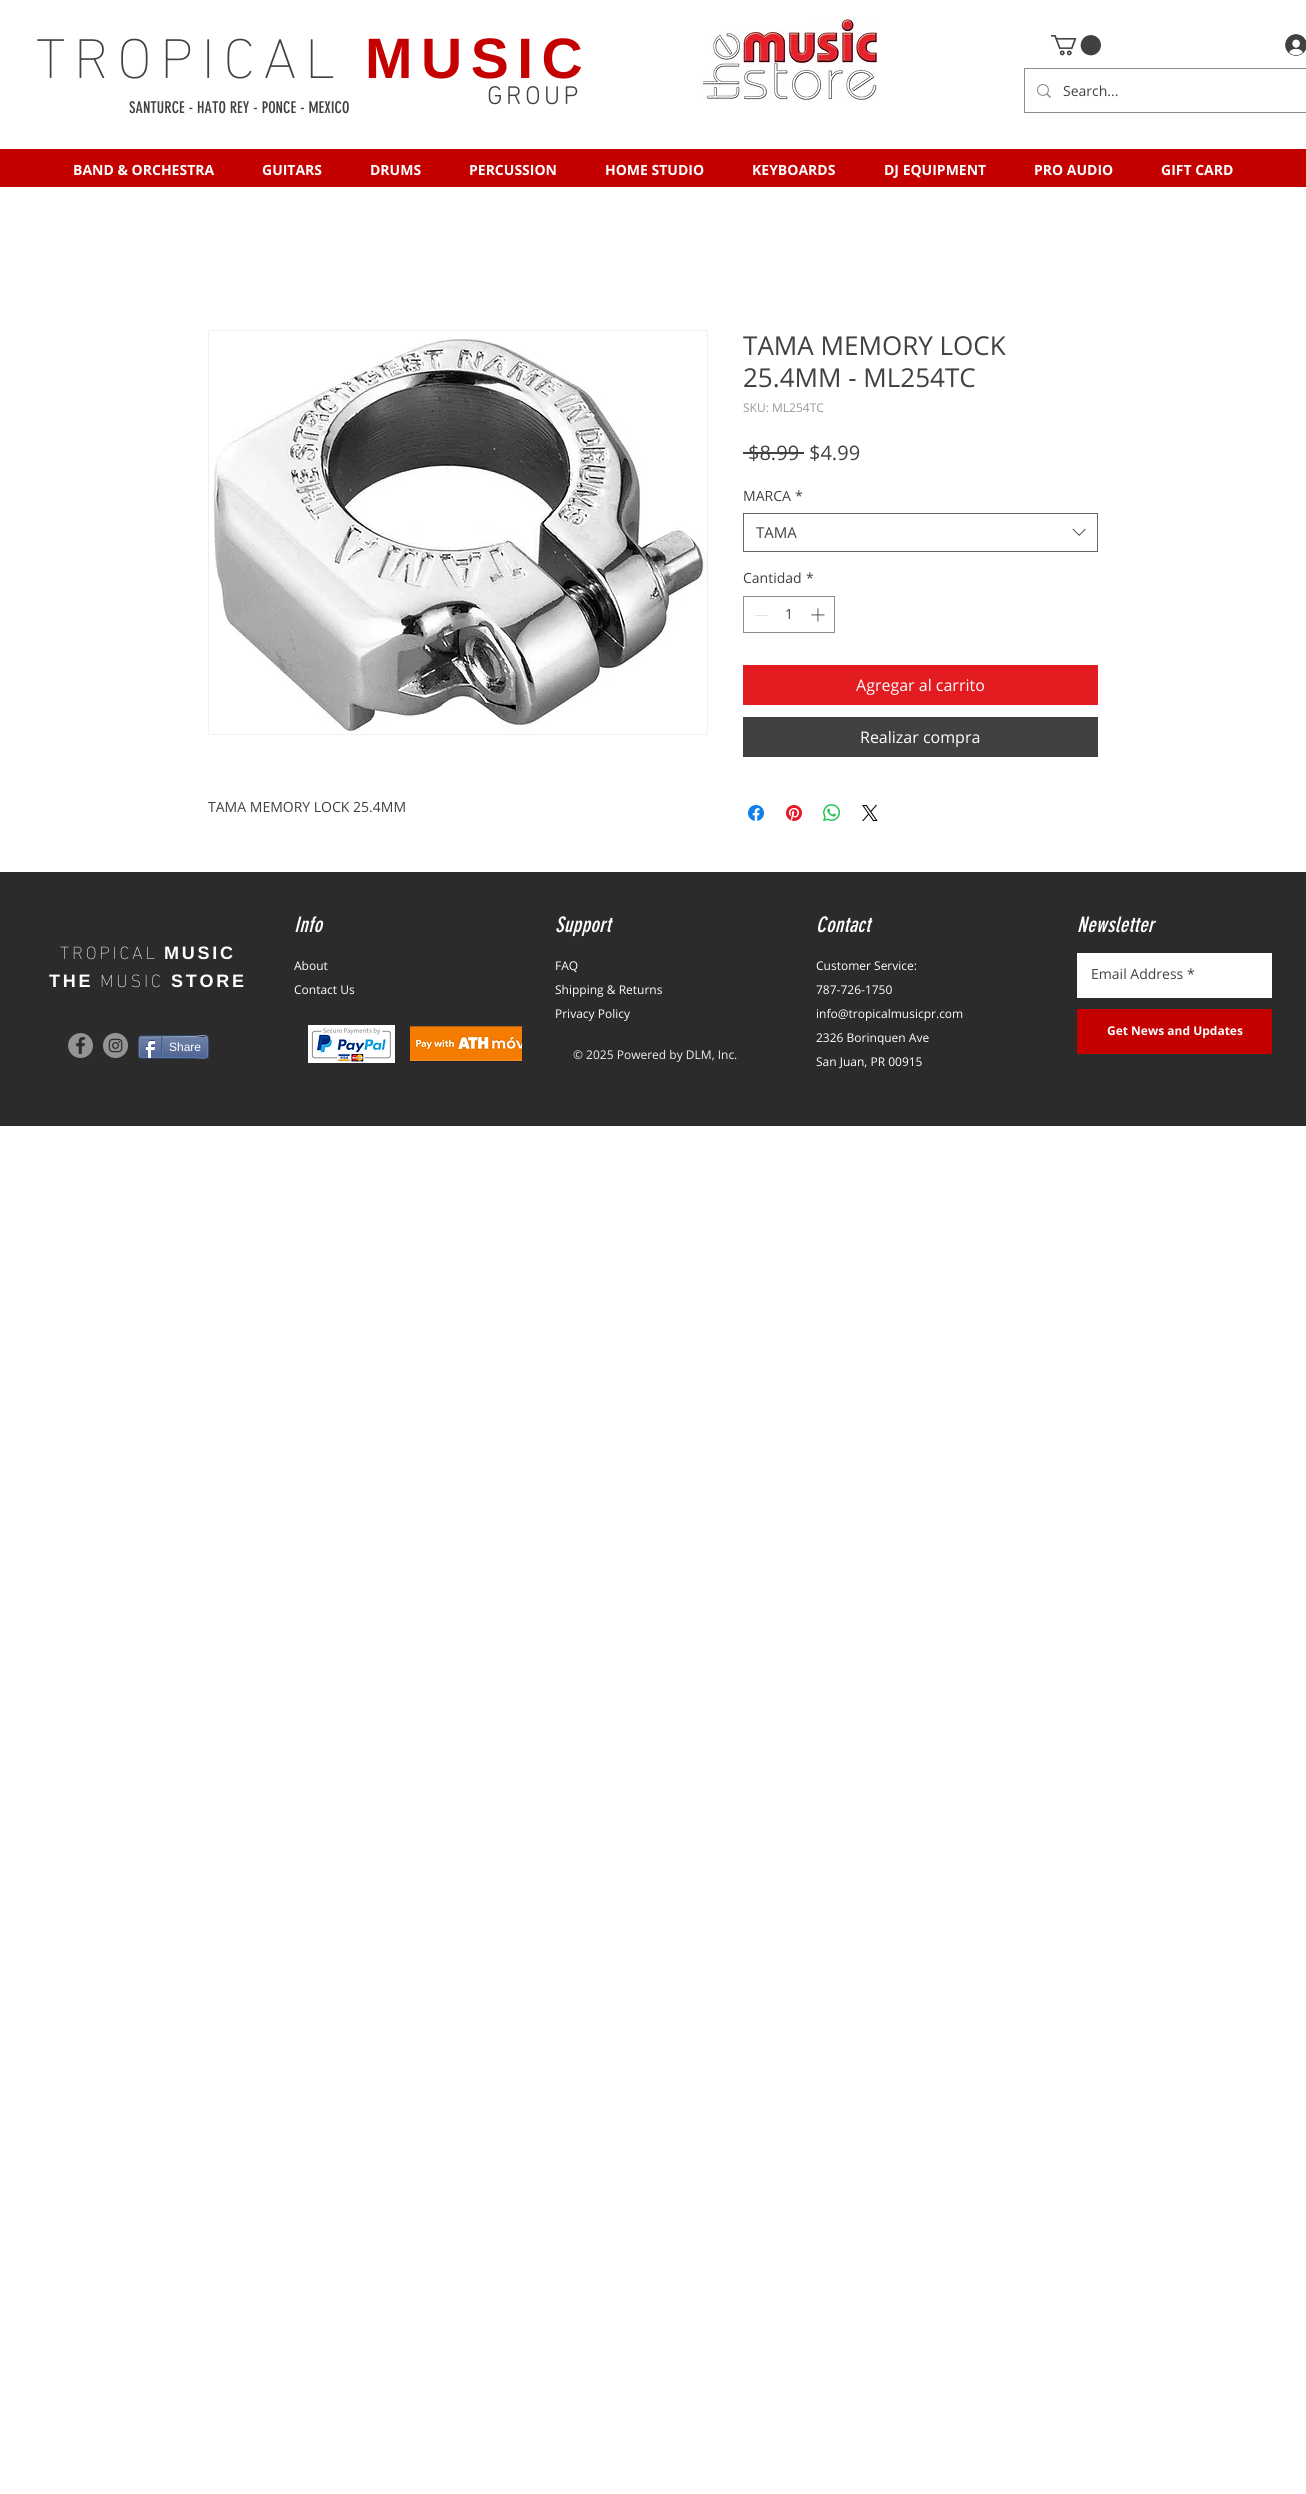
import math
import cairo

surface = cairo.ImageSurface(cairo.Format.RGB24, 1306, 2494)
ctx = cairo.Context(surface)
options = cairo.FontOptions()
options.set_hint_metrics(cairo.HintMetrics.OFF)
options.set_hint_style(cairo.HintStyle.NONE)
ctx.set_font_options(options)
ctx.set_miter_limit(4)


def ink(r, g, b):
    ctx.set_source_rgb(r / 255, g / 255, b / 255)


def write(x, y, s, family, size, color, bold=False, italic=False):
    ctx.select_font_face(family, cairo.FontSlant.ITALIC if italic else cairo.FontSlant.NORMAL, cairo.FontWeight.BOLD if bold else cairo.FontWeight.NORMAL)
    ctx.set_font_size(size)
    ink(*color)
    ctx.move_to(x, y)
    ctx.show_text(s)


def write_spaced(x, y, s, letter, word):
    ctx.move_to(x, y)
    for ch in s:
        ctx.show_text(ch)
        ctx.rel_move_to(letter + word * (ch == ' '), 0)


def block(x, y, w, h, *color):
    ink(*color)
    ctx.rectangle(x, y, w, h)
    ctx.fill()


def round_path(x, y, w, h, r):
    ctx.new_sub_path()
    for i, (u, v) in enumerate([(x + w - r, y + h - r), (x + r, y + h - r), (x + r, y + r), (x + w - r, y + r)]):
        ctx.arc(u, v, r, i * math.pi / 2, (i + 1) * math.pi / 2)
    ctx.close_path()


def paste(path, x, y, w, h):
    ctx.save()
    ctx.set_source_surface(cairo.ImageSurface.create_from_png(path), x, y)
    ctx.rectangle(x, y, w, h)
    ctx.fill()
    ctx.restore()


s1 = dict(family="Open Sans", size=14, color=(65, 65, 65))
s2 = dict(family="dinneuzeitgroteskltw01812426", size=16, color=(65, 65, 65))
s3 = dict(family="Open Sans", size=14, color=(255, 255, 255), bold=True)
s4 = dict(family="Open Sans", size=26, color=(65, 65, 65))
s5 = dict(family="Open Sans", size=12, color=(153, 153, 151))
s6 = dict(family="Open Sans", size=20, color=(65, 65, 65))
s7 = dict(family="Open Sans", size=15, color=(65, 65, 65))
s8 = dict(family="Open Sans", size=16, color=(255, 255, 255))
s9 = dict(family="Liberation Sans", size=12, color=(255, 255, 255))
s10 = dict(family="Open Sans", size=12, color=(255, 255, 255))
s11 = dict(family="Open Sans", size=12, color=(240, 240, 240))
s12 = dict(family="Open Sans", size=12, color=(255, 255, 255), bold=True)

ink(255, 255, 255)
ctx.paint()
ctx.select_font_face("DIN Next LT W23 ExtraLight")
ctx.set_font_size(57)
ink(65, 65, 65)
write_spaced(36, 78, "TROPICAL", 8.5, 0)
ctx.select_font_face("Liberation Sans", cairo.FontSlant.NORMAL, cairo.FontWeight.BOLD)
ink(197, 0, 1)
write_spaced(365, 78, "MUSIC", 8.5, 0)
paste("pic1.png", 703, 19, 174, 84)
paste("pic2.png", 1051, 35, 50, 21)
paste("pic3.png", 1285, 34, 21, 22)
ctx.select_font_face("DIN Next LT W23", cairo.FontSlant.NORMAL, cairo.FontWeight.BOLD)
ctx.set_font_size(25)
ink(65, 65, 65)
write_spaced(487, 104, "GROUP", 3.75, 0)
ctx.rectangle(1024.5, 68.5, 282, 44)
ink(141, 141, 141)
ctx.set_line_width(1)
ctx.stroke()
paste("pic4.png", 1037, 84, 14, 14)
write(1063, 96, "Search...", **s1)
write(129, 113, "SANTURCE - HATO REY - PONCE - MEXICO", **s2)
block(0, 149, 1306, 38, 197, 0, 1)
write(73, 175, "BAND & ORCHESTRA", **s3)
write(262, 175, "GUITARS", **s3)
write(370, 175, "DRUMS", **s3)
write(469, 175, "PERCUSSION", **s3)
write(605, 175, "HOME STUDIO", **s3)
write(752, 175, "KEYBOARDS", **s3)
write(884, 175, "DJ EQUIPMENT", **s3)
write(1034, 175, "PRO AUDIO", **s3)
write(1161, 175, "GIFT CARD", **s3)
write(743, 355, "TAMA MEMORY LOCK", **s4)
write(743, 387, "25.4MM - ML254TC", **s4)
write(743, 412, "SKU: ML254TC", **s5)
write(748, 460, "$8.99", **s6)
block(743, 452, 61, 2, 65, 65, 65)
write(809, 460, "$4.99", **s6)
write(743, 501, "MARCA", **s1)
write(795, 501, "*", **s1)
ctx.rectangle(743.5, 513.5, 354, 38)
ink(102, 102, 102)
ctx.stroke()
write(756, 538, "TAMA", **s7)
paste("pic5.png", 1072, 528, 14, 8)
write(743, 583, "Cantidad", **s1)
write(806, 583, "*", **s1)
ctx.rectangle(743.5, 596.5, 91, 36)
ink(141, 141, 141)
ctx.stroke()
block(755, 615, 13, 1, 227, 227, 227)
write(785, 619, "1", **s1)
paste("pic6.png", 811, 608, 14, 14)
block(743, 665, 355, 40, 226, 28, 33)
write(856, 691, "Agregar al carrito", **s8)
block(743, 717, 355, 40, 65, 65, 65)
write(860, 743, "Realizar compra", **s8)
paste("pic7.png", 748, 805, 16, 16)
paste("pic8.png", 786, 805, 16, 16)
paste("pic9.png", 823, 804, 17, 17)
paste("pic10.png", 862, 805, 16, 16)
ctx.rectangle(208.5, 330.5, 499, 404)
ink(240, 240, 240)
ctx.stroke()
paste("pic11.png", 213, 339, 492, 392)
write(208, 812, "TAMA MEMORY LOCK 25.4MM", **s1)
block(0, 872, 1306, 254, 43, 43, 43)
ctx.select_font_face("DIN Next LT W23 ExtraLight")
ctx.set_font_size(18)
ink(255, 255, 255)
write_spaced(60, 959, "TROPICAL", 2.75, 0)
ctx.select_font_face("Liberation Sans", cairo.FontSlant.NORMAL, cairo.FontWeight.BOLD)
write_spaced(164, 959, "MUSIC", 2.75, 0)
write_spaced(49, 987, "THE", 2.75, 0)
ctx.select_font_face("DIN Next LT W23 ExtraLight")
write_spaced(100, 987, "MUSIC", 2.75, 0)
ctx.select_font_face("Liberation Sans", cairo.FontSlant.NORMAL, cairo.FontWeight.BOLD)
write_spaced(171, 987, "STORE", 2.75, 0)
paste("pic12.png", 68, 1033, 25, 25)
paste("pic13.png", 103, 1033, 25, 25)
round_path(138.5, 1035.5, 70, 23, 2.5)
ink(45, 69, 101)
ctx.stroke()
paste("pic14.png", 139, 1037, 69, 21)
ctx.new_path()
ctx.move_to(140, 1037)
ctx.line_to(195, 1036.5)
ctx.curve_to(199, 1036.5, 204, 1034, 207, 1037)
ink(154, 171, 198)
ctx.stroke()
ctx.new_path()
ctx.move_to(207, 1037)
ctx.curve_to(208, 1037.5, 208, 1056.5, 207, 1057)
ink(111, 131, 173)
ctx.stroke()
ctx.new_path()
ctx.move_to(207, 1057)
ctx.curve_to(204, 1060, 199, 1057.5, 195, 1057.5)
ctx.line_to(140, 1057)
ink(97, 118, 163)
ctx.stroke()
ctx.new_path()
ctx.move_to(140, 1057)
ctx.curve_to(139, 1056.5, 139, 1037.5, 140, 1037)
ink(111, 131, 173)
ctx.stroke()
paste("pic15.png", 145, 1040, 10, 18)
block(161, 1037, 1, 21, 66, 94, 133)
write(169, 1051, "Share", **s9)
block(162, 1037, 1, 20, 97, 118, 163)
ctx.select_font_face("dinneuzeitgroteskltw01812426", cairo.FontSlant.ITALIC)
ctx.set_font_size(21)
ink(255, 255, 255)
write_spaced(294, 932, "Info", 0.25, 0)
write(294, 970, "About", **s10)
write(294, 994, "Contact Us", **s10)
paste("pic16.png", 308, 1025, 87, 38)
paste("pic17.png", 410, 1026, 112, 37)
ctx.select_font_face("dinneuzeitgroteskltw01812426", cairo.FontSlant.ITALIC)
ctx.set_font_size(21)
write_spaced(555, 932, "Support", 0.25, 0)
write(555, 970, "FAQ", **s10)
write(555, 994, "Shipping & Returns", **s10)
write(555, 1018, "Privacy Policy", **s10)
write(573, 1059, "© 2025 Powered by DLM, Inc.", **s11)
ctx.select_font_face("dinneuzeitgroteskltw01812426", cairo.FontSlant.ITALIC)
ctx.set_font_size(21)
ink(255, 255, 255)
write_spaced(816, 932, "Contact", 0.25, 0)
write(816, 970, "Customer Service:", **s10)
write(816, 994, "787-726-1750", **s10)
write(816, 1018, "info@tropicalmusicpr.com", **s10)
write(816, 1042, "2326 Borinquen Ave", **s10)
write(816, 1066, "San Juan, PR 00915", **s10)
ctx.select_font_face("dinneuzeitgroteskltw01812426", cairo.FontSlant.ITALIC)
ctx.set_font_size(21)
write_spaced(1077, 932, "Newsletter", 0.25, 0)
block(1077, 953, 195, 45, 255, 255, 255)
write(1091, 979, "Email Address *", **s1)
block(1077, 1009, 195, 45, 197, 0, 1)
write(1107, 1035, "Get News and Updates", **s12)
surface.write_to_png("screenshot.png")
